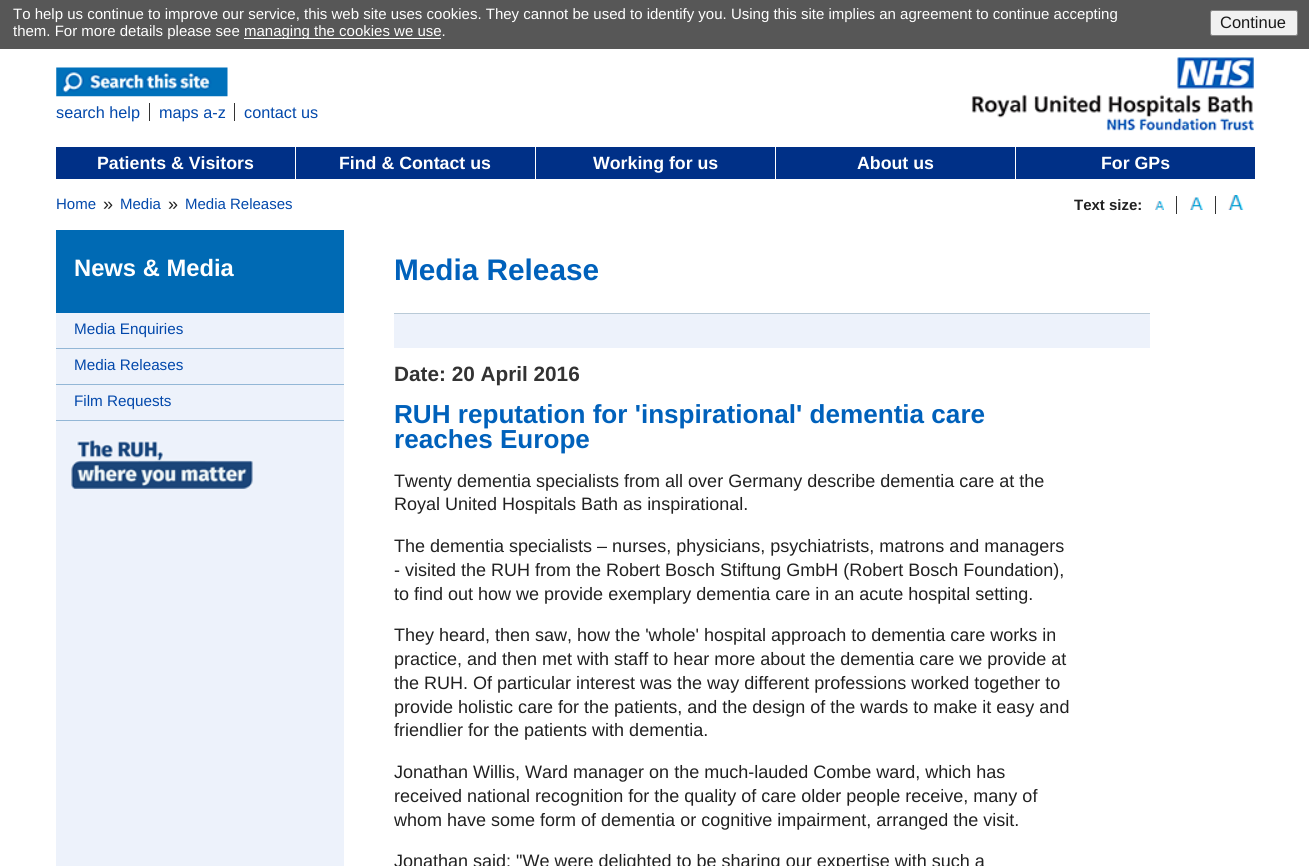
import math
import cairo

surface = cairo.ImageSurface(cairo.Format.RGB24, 1309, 866)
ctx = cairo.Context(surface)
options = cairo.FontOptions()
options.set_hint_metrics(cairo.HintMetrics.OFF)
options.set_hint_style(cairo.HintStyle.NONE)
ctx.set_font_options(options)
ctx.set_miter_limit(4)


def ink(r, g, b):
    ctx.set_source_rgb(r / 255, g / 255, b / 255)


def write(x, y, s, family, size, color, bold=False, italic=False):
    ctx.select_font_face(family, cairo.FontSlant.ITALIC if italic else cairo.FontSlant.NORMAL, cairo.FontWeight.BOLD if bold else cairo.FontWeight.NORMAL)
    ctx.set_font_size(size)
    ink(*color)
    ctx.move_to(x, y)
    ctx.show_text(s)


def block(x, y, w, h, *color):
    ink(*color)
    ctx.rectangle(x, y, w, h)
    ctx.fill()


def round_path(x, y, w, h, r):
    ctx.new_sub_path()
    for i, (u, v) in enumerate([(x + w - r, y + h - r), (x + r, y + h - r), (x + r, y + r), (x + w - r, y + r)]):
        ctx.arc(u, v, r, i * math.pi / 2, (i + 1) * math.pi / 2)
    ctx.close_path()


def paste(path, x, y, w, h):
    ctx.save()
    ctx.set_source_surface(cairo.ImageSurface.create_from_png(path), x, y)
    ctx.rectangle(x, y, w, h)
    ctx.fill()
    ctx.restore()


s1 = dict(family="Liberation Sans", size=15, color=(255, 255, 255))
s2 = dict(family="Liberation Sans", size=16.5, color=(26, 26, 26))
s3 = dict(family="Liberation Sans", size=16.25, color=(2, 72, 171))
s4 = dict(family="Liberation Sans", size=17.75, color=(255, 255, 255), bold=True)
s5 = dict(family="Liberation Sans", size=15, color=(2, 72, 171))
s6 = dict(family="Liberation Sans", size=18, color=(33, 33, 33))
s7 = dict(family="Liberation Sans", size=15, color=(33, 33, 33), bold=True)
s8 = dict(family="Liberation Sans", size=23.75, color=(255, 255, 255), bold=True)
s9 = dict(family="Liberation Sans", size=29.75, color=(0, 97, 187), bold=True)
s10 = dict(family="Liberation Sans", size=20.75, color=(51, 51, 51), bold=True)
s11 = dict(family="Liberation Sans", size=26.1, color=(0, 97, 187), bold=True)
s12 = dict(family="Liberation Sans", size=15.25, color=(2, 72, 171))

ink(255, 255, 255)
ctx.paint()
block(0, 0, 1309, 49, 87, 87, 87)
write(13, 19, "To help us continue to improve our service, this web site uses cookies. They cannot be used to identify you. Using this site implies an agreement to continue accepting", **s1)
write(13, 36, "them. For more details please see", **s1)
block(244, 38, 197, 1, 255, 255, 255)
write(244, 36, "managing the cookies we use.", **s1)
ink(241, 241, 241)
round_path(1210.5, 10.5, 87, 25, 2)
ctx.fill_preserve()
ink(132, 132, 132)
ctx.set_line_width(1)
ctx.stroke()
write(1220, 28, "Continue", **s2)
paste("pic1.png", 56, 67, 172, 30)
write(56, 118, "search help", **s3)
block(149, 103, 1, 18, 51, 51, 51)
write(159, 118, "maps a-z", **s3)
block(234, 103, 1, 18, 51, 51, 51)
write(244, 118, "contact us", **s3)
paste("pic2.png", 971, 57, 283, 74)
block(56, 147, 239, 32, 0, 48, 135)
write(97, 169, "Patients & Visitors", **s4)
block(296, 147, 239, 32, 0, 48, 135)
write(339, 169, "Find & Contact us", **s4)
block(536, 147, 239, 32, 0, 48, 135)
write(593, 169, "Working for us", **s4)
block(776, 147, 239, 32, 0, 48, 135)
write(857, 169, "About us", **s4)
block(1016, 147, 239, 32, 0, 48, 135)
write(1101, 169, "For GPs", **s4)
write(56, 209, "Home", **s5)
write(103, 210, "»", **s6)
write(120, 209, "Media", **s5)
write(168, 210, "»", **s6)
write(185, 209, "Media Releases", **s5)
write(1074, 210, "Text size:", **s7)
paste("pic3.png", 1155, 201, 9, 9)
block(1176, 196, 1, 18, 51, 51, 51)
paste("pic4.png", 1190, 197, 13, 13)
block(1215, 196, 1, 18, 51, 51, 51)
paste("pic5.png", 1228, 195, 16, 15)
block(56, 313, 288, 553, 237, 242, 251)
block(56, 230, 288, 83, 0, 106, 180)
write(74, 276, "News & Media", **s8)
write(394, 280, "Media Release", **s9)
block(394, 314, 756, 34, 237, 242, 251)
block(394, 313, 756, 1, 185, 202, 215)
write(394, 381, "Date: 20 April 2016", **s10)
write(394, 423, "RUH reputation for 'inspirational' dementia care", **s11)
write(394, 448, "reaches Europe", **s11)
write(394, 487, "Twenty dementia specialists from all over Germany describe dementia care at the", **s6)
write(394, 510, "Royal United Hospitals Bath as inspirational.", **s6)
write(394, 552, "The dementia specialists – nurses, physicians, psychiatrists, matrons and managers", **s6)
write(394, 576, "- visited the RUH from the Robert Bosch Stiftung GmbH (Robert Bosch Foundation),", **s6)
write(394, 600, "to find out how we provide exemplary dementia care in an acute hospital setting.", **s6)
write(394, 641, "They heard, then saw, how the 'whole' hospital approach to dementia care works in", **s6)
write(394, 665, "practice, and then met with staff to hear more about the dementia care we provide at", **s6)
write(394, 689, "the RUH. Of particular interest was the way different professions worked together to", **s6)
write(394, 713, "provide holistic care for the patients, and the design of the wards to make it easy and", **s6)
write(394, 736, "friendlier for the patients with dementia.", **s6)
write(394, 778, "Jonathan Willis, Ward manager on the much-lauded Combe ward, which has", **s6)
write(394, 802, "received national recognition for the quality of care older people receive, many of", **s6)
write(394, 826, "whom have some form of dementia or cognitive impairment, arranged the visit.", **s6)
write(394, 867, "Jonathan said: \"We were delighted to be sharing our expertise with such a", **s6)
block(56, 348, 288, 1, 147, 183, 214)
write(74, 334, "Media Enquiries", **s12)
block(56, 384, 288, 1, 147, 183, 214)
write(74, 370, "Media Releases", **s12)
block(56, 420, 288, 1, 147, 183, 214)
write(74, 406, "Film Requests", **s12)
paste("pic6.png", 71, 440, 182, 49)
surface.write_to_png("screenshot.png")
